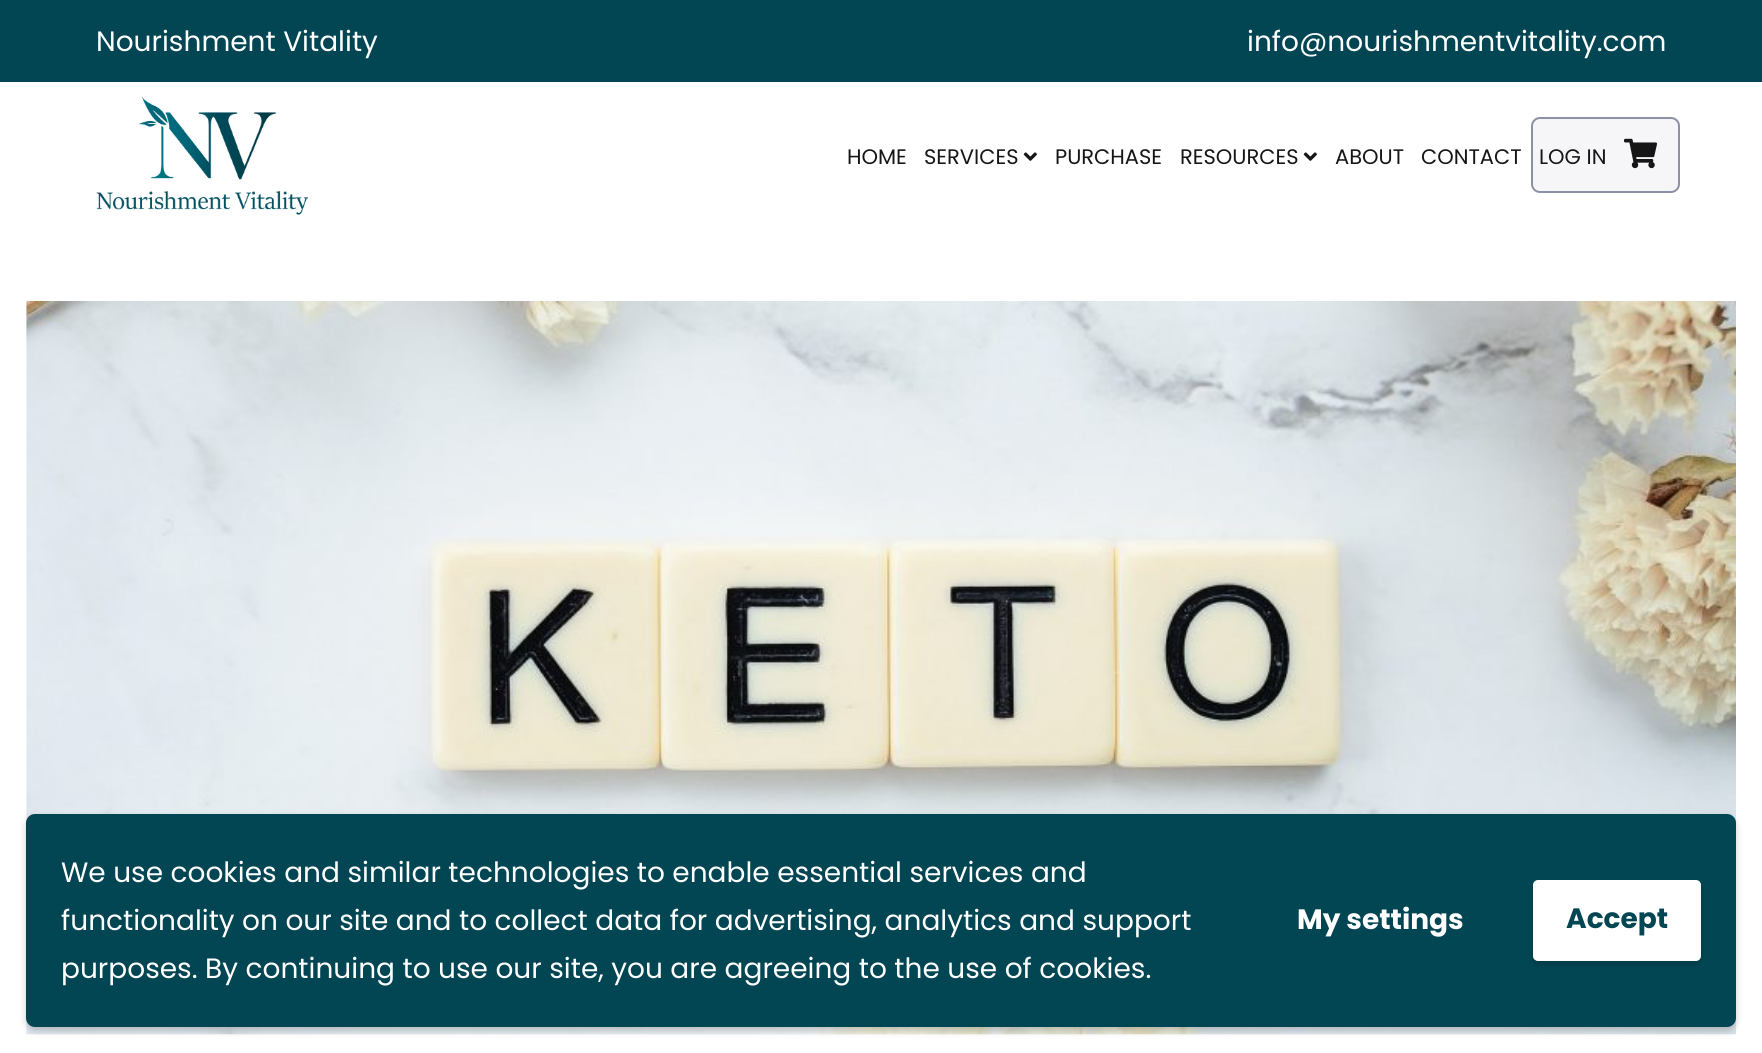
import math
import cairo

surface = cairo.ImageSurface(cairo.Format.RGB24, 1762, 1053)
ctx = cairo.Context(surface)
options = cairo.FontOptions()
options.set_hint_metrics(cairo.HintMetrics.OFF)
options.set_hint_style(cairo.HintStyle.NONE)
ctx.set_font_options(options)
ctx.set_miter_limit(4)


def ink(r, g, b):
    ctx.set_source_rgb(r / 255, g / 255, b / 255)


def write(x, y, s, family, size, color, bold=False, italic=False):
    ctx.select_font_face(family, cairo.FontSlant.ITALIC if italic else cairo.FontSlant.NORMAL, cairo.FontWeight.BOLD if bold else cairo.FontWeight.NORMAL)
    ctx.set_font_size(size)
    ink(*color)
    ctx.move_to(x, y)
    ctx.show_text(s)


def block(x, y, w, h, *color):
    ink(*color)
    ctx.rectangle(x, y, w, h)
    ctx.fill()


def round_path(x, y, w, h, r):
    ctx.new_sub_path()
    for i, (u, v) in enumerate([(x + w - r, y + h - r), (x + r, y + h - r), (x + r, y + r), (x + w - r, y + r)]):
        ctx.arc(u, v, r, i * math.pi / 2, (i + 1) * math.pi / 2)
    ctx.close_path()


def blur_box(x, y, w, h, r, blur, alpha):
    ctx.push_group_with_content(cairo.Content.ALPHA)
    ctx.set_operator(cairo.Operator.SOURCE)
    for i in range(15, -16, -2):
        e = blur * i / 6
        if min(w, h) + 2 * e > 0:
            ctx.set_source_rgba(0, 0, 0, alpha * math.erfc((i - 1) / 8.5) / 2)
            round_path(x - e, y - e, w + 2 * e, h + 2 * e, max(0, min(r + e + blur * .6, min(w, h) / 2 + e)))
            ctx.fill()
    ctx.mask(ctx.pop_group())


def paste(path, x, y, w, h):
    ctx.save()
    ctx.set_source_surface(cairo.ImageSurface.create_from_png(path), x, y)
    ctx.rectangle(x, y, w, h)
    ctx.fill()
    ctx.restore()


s1 = dict(family="Poppins", size=28, color=(255, 255, 255))
s2 = dict(family="Poppins", size=21, color=(22, 22, 22))
s3 = dict(family="Poppins", size=28, color=(255, 255, 255), bold=True)
s4 = dict(family="Poppins", size=28, color=(2, 70, 84), bold=True)

ink(255, 255, 255)
ctx.paint()
block(0, 0, 1762, 82, 2, 70, 84)
write(96, 51, "Nourishment Vitality", **s1)
write(1247, 51, "info@nourishmentvitality.com", **s1)
paste("pic1.png", 96, 96, 212, 119)
write(847, 164, "HOME", **s2)
write(924, 164, "SERVICES", **s2)
paste("pic2.png", 1023, 152, 14, 9)
write(1055, 164, "PURCHASE", **s2)
write(1180, 164, "RESOURCES", **s2)
paste("pic2.png", 1303, 152, 14, 9)
write(1335, 164, "ABOUT", **s2)
write(1421, 164, "CONTACT", **s2)
ink(246, 246, 248)
round_path(1532, 118, 147, 74, 8)
ctx.fill_preserve()
ink(140, 145, 165)
ctx.stroke()
write(1539, 164, "LOG IN", **s2)
paste("pic3.png", 1624, 138, 33, 31)
paste("pic4.png", 26, 301, 1710, 734)
ink(0, 0, 0)
blur_box(26, 817, 1710, 214, 9, 3.5, 0.2)
ink(2, 70, 84)
round_path(26, 814, 1710, 213, 9)
ctx.fill()
write(61, 882, "We use cookies and similar technologies to enable essential services and", **s1)
write(61, 930, "functionality on our site and to collect data for advertising, analytics and support", **s1)
write(61, 978, "purposes. By continuing to use our site, you are agreeing to the use of cookies.", **s1)
write(1297, 929, "My settings", **s3)
ink(0, 0, 0)
blur_box(1533, 884, 168, 80, 5, 3.5, 0.2)
ink(255, 255, 255)
round_path(1534, 881, 166, 79, 4)
ctx.fill_preserve()
ctx.stroke()
write(1566, 928, "Accept", **s4)
surface.write_to_png("screenshot.png")
